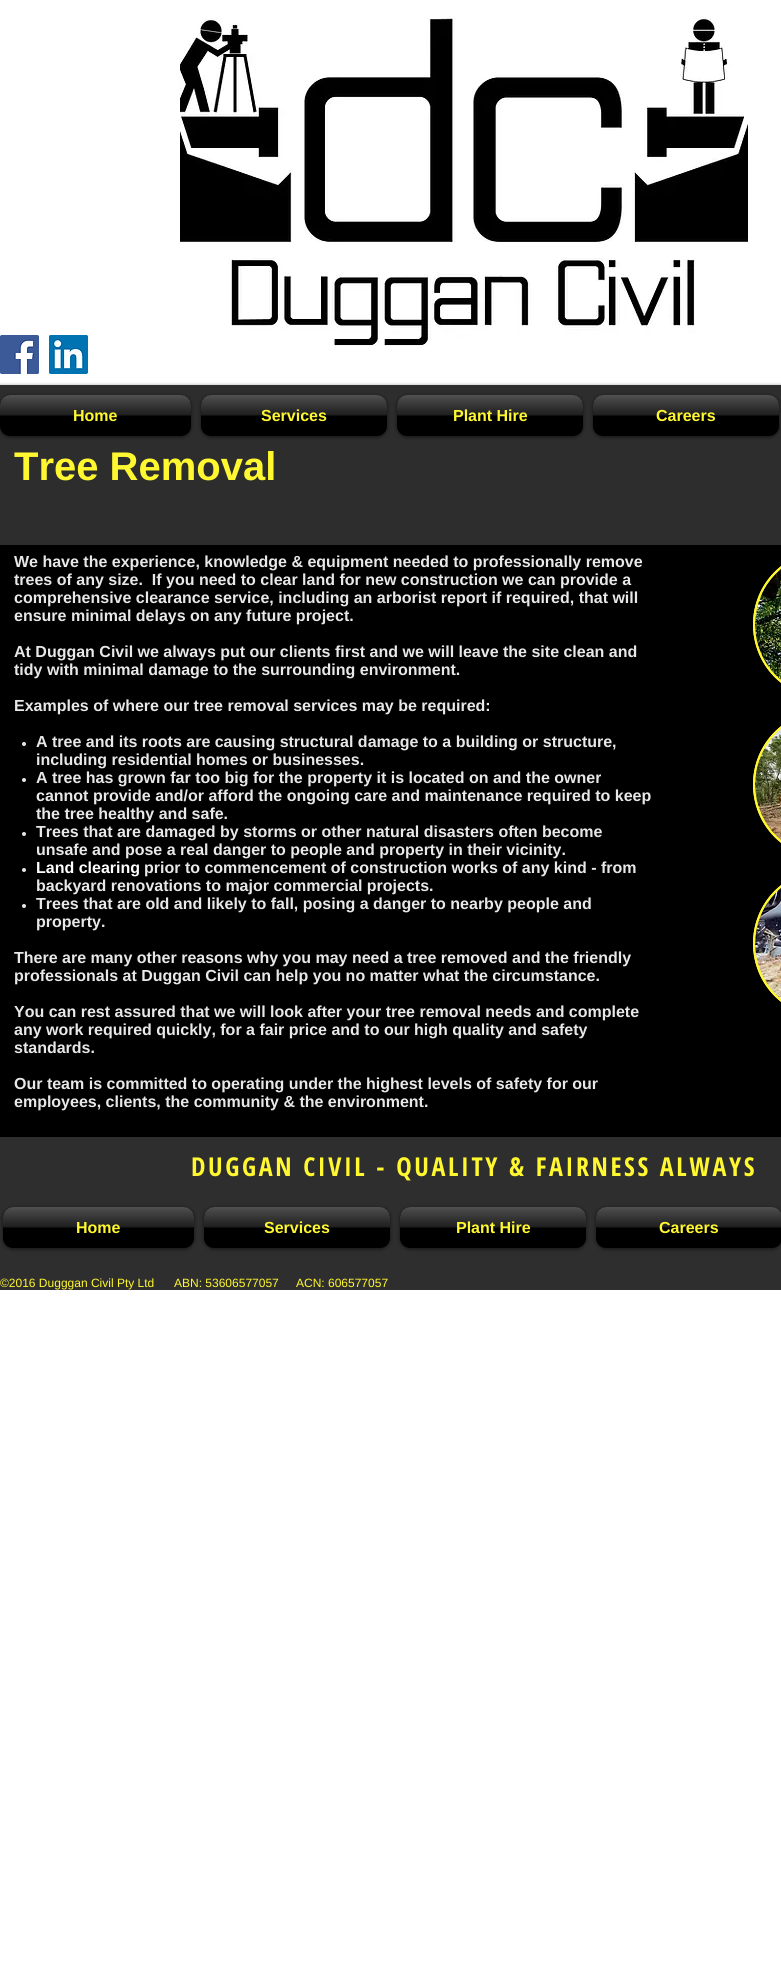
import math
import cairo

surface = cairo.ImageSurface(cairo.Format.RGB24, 781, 1964)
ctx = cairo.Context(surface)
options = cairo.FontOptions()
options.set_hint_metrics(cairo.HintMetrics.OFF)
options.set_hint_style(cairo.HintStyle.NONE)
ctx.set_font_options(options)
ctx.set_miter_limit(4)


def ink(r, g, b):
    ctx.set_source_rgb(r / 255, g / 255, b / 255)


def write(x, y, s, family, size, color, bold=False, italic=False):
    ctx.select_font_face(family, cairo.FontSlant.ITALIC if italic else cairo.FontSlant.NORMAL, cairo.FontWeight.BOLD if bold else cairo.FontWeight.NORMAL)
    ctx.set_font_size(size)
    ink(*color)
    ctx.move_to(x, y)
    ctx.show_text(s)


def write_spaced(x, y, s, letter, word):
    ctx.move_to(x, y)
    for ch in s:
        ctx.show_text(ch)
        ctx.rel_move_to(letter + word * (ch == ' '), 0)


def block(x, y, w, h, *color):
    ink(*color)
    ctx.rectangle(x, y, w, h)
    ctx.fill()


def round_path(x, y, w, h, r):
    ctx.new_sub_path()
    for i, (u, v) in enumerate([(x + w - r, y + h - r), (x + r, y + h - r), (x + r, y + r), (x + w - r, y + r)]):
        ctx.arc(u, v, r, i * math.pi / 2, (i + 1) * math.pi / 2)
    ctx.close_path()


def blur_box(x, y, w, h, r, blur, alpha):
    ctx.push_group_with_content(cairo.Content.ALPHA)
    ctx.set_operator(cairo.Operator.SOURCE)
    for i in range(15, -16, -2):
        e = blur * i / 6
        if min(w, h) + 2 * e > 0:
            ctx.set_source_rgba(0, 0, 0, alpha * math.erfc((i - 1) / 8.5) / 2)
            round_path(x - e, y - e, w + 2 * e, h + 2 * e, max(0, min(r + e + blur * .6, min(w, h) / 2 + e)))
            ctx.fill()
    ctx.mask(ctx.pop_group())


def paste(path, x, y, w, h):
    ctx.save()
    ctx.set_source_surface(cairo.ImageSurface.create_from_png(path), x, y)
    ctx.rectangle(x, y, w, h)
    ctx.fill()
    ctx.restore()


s1 = dict(family="Liberation Sans", size=16, color=(255, 248, 48), bold=True)
s2 = dict(family="Liberation Sans", size=40, color=(255, 248, 48), bold=True)
s3 = dict(family="Liberation Sans", size=16, color=(232, 232, 232), bold=True)
s4 = dict(family="Liberation Sans", size=16, color=(255, 255, 255), bold=True)
s5 = dict(family="Liberation Sans", size=12, color=(255, 248, 48))

ink(255, 255, 255)
ctx.paint()
paste("pic1.png", 180, 16, 568, 330)
paste("pic2.png", 0, 335, 39, 39)
paste("pic3.png", 49, 335, 39, 39)
ink(0, 0, 0)
blur_box(0, 386, 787, 752, 0, 2, 0.6)
block(0, 385, 781, 160, 45, 45, 45)
ink(0, 0, 0)
blur_box(0, 396, 191, 41, 10, 2, 0.6)
ink(0, 0, 0)
round_path(0, 395, 191, 41, 10)
ctx.fill()
paste("pic4.png", 0, 395, 191, 21)
write(73, 421, "Home", **s1)
ink(0, 0, 0)
blur_box(201, 396, 186, 41, 10, 2, 0.6)
ink(0, 0, 0)
round_path(201, 395, 186, 41, 10)
ctx.fill()
paste("pic5.png", 201, 395, 186, 21)
write(261, 421, "Services", **s1)
ink(0, 0, 0)
blur_box(397, 396, 186, 41, 10, 2, 0.6)
ink(0, 0, 0)
round_path(397, 395, 186, 41, 10)
ctx.fill()
paste("pic5.png", 397, 395, 186, 21)
write(453, 421, "Plant Hire", **s1)
ink(0, 0, 0)
blur_box(593, 396, 186, 41, 10, 2, 0.6)
ink(0, 0, 0)
round_path(593, 395, 186, 41, 10)
ctx.fill()
paste("pic5.png", 593, 395, 186, 21)
write(656, 421, "Careers", **s1)
write(14, 480, "Tree Removal", **s2)
block(0, 545, 781, 592, 0, 0, 0)
write(14, 567, "We have the experience, knowledge & equipment needed to professionally remove", **s3)
write(14, 585, "trees of any size.  If you need to clear land for new construction we can provide a", **s3)
write(14, 603, "comprehensive clearance service, including an arborist report if required, that will", **s3)
write(14, 621, "ensure minimal delays on any future project.", **s3)
write(14, 657, "At Duggan Civil we always put our clients first and we will leave the site clean and", **s3)
write(14, 675, "tidy with minimal damage to the surrounding environment.", **s3)
write(14, 711, "Examples of where our tree removal services may be required:", **s3)
ctx.new_path()
ctx.arc(24, 744, 2, 0, 2 * math.pi)
ctx.fill()
write(36, 747, "A tree and its roots are causing structural damage to a building or structure,", **s3)
write(36, 765, "including residential homes or businesses.", **s3)
ctx.new_path()
ctx.arc(24, 780, 2, 0, 2 * math.pi)
ctx.fill()
write(36, 783, "A tree has grown far too big for the property it is located on and the owner", **s3)
write(36, 801, "cannot provide and/or afford the ongoing care and maintenance required to keep", **s3)
write(36, 819, "the tree healthy and safe.", **s3)
ctx.new_path()
ctx.arc(24, 834, 2, 0, 2 * math.pi)
ctx.fill()
write(36, 837, "Trees that are damaged by storms or other natural disasters often become", **s3)
write(36, 855, "unsafe and pose a real danger to people and property in their vicinity.", **s3)
ctx.new_path()
ctx.arc(24, 870, 2, 0, 2 * math.pi)
ctx.fill()
write(36, 873, "Land clearing", **s4)
write(144, 873, "prior to commencement of construction works of any kind - from", **s3)
write(36, 891, "backyard renovations to major commercial projects.", **s3)
ctx.new_path()
ctx.arc(24, 906, 2, 0, 2 * math.pi)
ctx.fill()
write(36, 909, "Trees that are old and likely to fall, posing a danger to nearby people and", **s3)
write(36, 927, "property.", **s3)
write(14, 963, "There are many other reasons why you may need a tree removed and the friendly", **s3)
write(14, 981, "professionals at Duggan Civil can help you no matter what the circumstance.", **s3)
write(14, 1017, "You can rest assured that we will look after your tree removal needs and complete", **s3)
write(14, 1035, "any work required quickly, for a fair price and to our high quality and safety", **s3)
write(14, 1053, "standards.", **s3)
write(14, 1089, "Our team is committed to operating under the highest levels of safety for our", **s3)
write(14, 1107, "employees, clients, the community & the environment.", **s3)
ink(255, 248, 48)
ctx.new_path()
ctx.move_to(824.5, 551)
ctx.curve_to(864, 551, 896, 584, 896, 624.5)
ctx.curve_to(896, 665, 864, 698, 824.5, 698)
ctx.curve_to(785, 698, 753, 665, 753, 624.5)
ctx.curve_to(753, 584, 785, 551, 824.5, 551)
ctx.close_path()
ctx.fill()
ctx.new_path()
ctx.move_to(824.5, 552)
ctx.curve_to(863.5, 552, 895, 584.5, 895, 624.5)
ctx.curve_to(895, 664.5, 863.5, 697, 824.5, 697)
ctx.curve_to(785.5, 697, 754, 664.5, 754, 624.5)
ctx.curve_to(754, 584.5, 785.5, 552, 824.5, 552)
ctx.close_path()
ctx.stroke()
paste("pic6.png", 755, 569, 26, 111)
ctx.new_path()
ctx.move_to(824.5, 711)
ctx.curve_to(864, 711, 896, 744, 896, 784.5)
ctx.curve_to(896, 825, 864, 858, 824.5, 858)
ctx.curve_to(785, 858, 753, 825, 753, 784.5)
ctx.curve_to(753, 744, 785, 711, 824.5, 711)
ctx.close_path()
ctx.fill()
ctx.new_path()
ctx.move_to(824.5, 712)
ctx.curve_to(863.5, 712, 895, 744.5, 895, 784.5)
ctx.curve_to(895, 824.5, 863.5, 857, 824.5, 857)
ctx.curve_to(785.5, 857, 754, 824.5, 754, 784.5)
ctx.curve_to(754, 744.5, 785.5, 712, 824.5, 712)
ctx.close_path()
ctx.stroke()
paste("pic7.png", 755, 729, 26, 111)
ctx.new_path()
ctx.move_to(824.5, 870)
ctx.curve_to(864, 870, 896, 903, 896, 943.5)
ctx.curve_to(896, 984, 864, 1017, 824.5, 1017)
ctx.curve_to(785, 1017, 753, 984, 753, 943.5)
ctx.curve_to(753, 903, 785, 870, 824.5, 870)
ctx.close_path()
ctx.fill()
ctx.new_path()
ctx.move_to(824.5, 871)
ctx.curve_to(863.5, 871, 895, 903.5, 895, 943.5)
ctx.curve_to(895, 983.5, 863.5, 1016, 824.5, 1016)
ctx.curve_to(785.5, 1016, 754, 983.5, 754, 943.5)
ctx.curve_to(754, 903.5, 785.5, 871, 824.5, 871)
ctx.close_path()
ctx.stroke()
paste("pic8.png", 755, 888, 26, 111)
block(0, 1137, 781, 153, 47, 46, 46)
ctx.select_font_face("Open Sans Condensed", cairo.FontSlant.NORMAL, cairo.FontWeight.BOLD)
ctx.set_font_size(26)
ink(255, 248, 48)
write_spaced(191, 1176, "DUGGAN CIVIL - QUALITY & FAIRNESS ALWAYS", 2.6, 0)
ink(0, 0, 0)
blur_box(3, 1208, 191, 41, 10, 2, 0.6)
ink(0, 0, 0)
round_path(3, 1207, 191, 41, 10)
ctx.fill()
paste("pic9.png", 3, 1207, 191, 21)
write(76, 1233, "Home", **s1)
ink(0, 0, 0)
blur_box(204, 1208, 186, 41, 10, 2, 0.6)
ink(0, 0, 0)
round_path(204, 1207, 186, 41, 10)
ctx.fill()
paste("pic10.png", 204, 1207, 186, 21)
write(264, 1233, "Services", **s1)
ink(0, 0, 0)
blur_box(400, 1208, 186, 41, 10, 2, 0.6)
ink(0, 0, 0)
round_path(400, 1207, 186, 41, 10)
ctx.fill()
paste("pic10.png", 400, 1207, 186, 21)
write(456, 1233, "Plant Hire", **s1)
ink(0, 0, 0)
blur_box(596, 1208, 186, 41, 10, 2, 0.6)
ink(0, 0, 0)
round_path(596, 1207, 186, 41, 10)
ctx.fill()
paste("pic11.png", 596, 1207, 185, 21)
write(659, 1233, "Careers", **s1)
write(0, 1287, "©2016 Dugggan Civil Pty Ltd", **s5)
write(174, 1287, "ABN: 53606577057", **s5)
write(296, 1287, "ACN: 606577057", **s5)
surface.write_to_png("screenshot.png")
